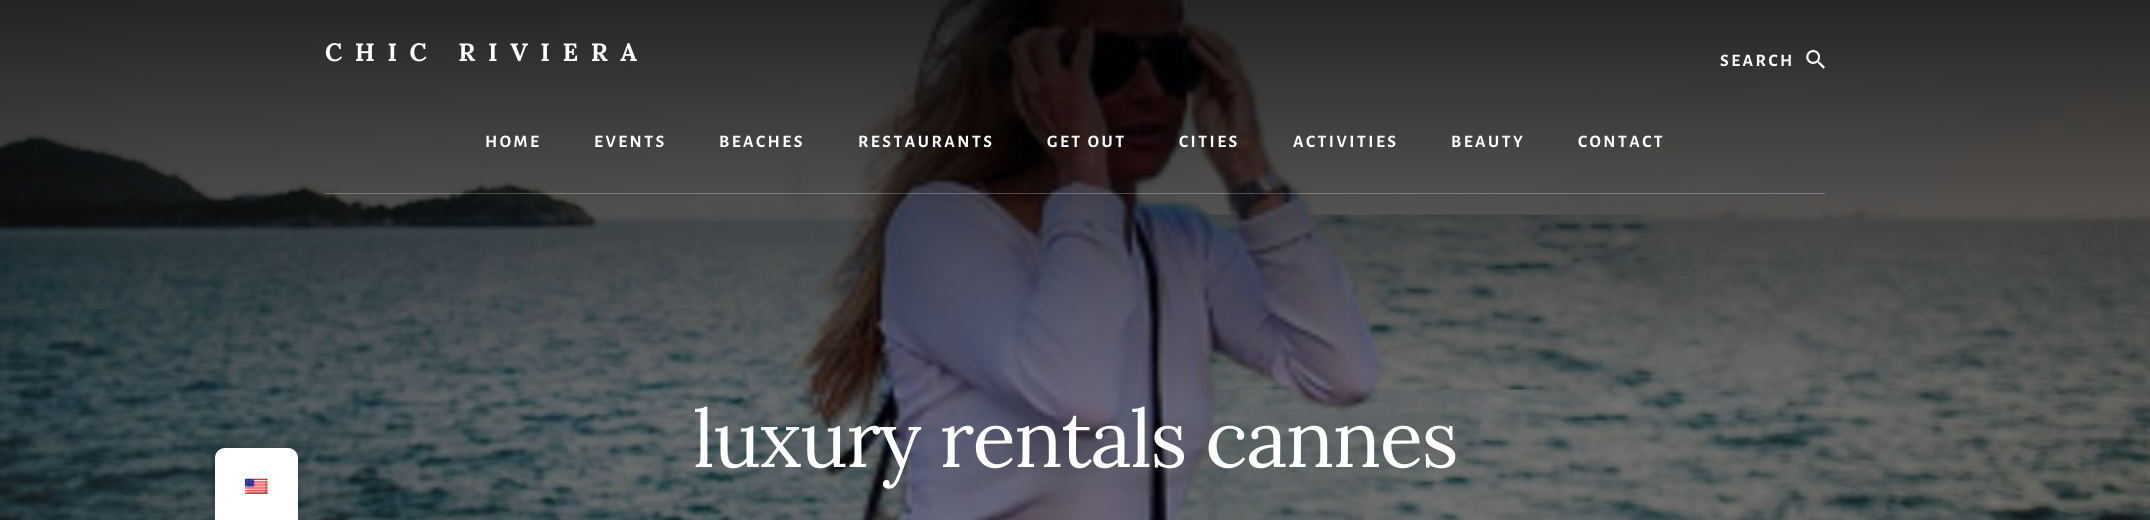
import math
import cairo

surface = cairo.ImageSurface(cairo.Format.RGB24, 2150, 520)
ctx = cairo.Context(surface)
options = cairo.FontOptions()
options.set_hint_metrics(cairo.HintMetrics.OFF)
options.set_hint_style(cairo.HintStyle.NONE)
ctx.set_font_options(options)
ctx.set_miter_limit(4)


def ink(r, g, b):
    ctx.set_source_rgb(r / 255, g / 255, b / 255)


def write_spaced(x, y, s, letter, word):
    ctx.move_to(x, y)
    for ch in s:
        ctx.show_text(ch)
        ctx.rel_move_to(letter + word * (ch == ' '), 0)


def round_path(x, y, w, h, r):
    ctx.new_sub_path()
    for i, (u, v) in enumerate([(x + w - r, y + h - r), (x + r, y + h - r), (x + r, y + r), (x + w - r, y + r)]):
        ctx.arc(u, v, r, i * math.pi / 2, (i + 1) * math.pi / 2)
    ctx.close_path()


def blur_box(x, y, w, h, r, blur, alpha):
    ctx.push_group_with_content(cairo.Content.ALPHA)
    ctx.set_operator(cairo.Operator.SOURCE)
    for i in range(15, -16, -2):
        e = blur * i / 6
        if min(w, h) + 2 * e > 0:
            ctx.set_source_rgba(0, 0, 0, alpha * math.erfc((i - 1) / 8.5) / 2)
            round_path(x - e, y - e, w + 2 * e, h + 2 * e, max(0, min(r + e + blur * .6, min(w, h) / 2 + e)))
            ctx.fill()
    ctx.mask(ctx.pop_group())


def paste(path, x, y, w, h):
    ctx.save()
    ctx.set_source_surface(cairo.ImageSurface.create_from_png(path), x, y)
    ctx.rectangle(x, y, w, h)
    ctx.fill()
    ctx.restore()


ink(255, 255, 255)
ctx.paint()
paste("pic2.png", 0, 0, 2150, 520)
ink(0, 0, 0)
blur_box(215, 448, 83, 72, 10, 5, 0.25)
ink(255, 255, 255)
ctx.new_path()
ctx.move_to(225, 448)
ctx.line_to(288, 448)
ctx.curve_to(293.5, 448, 298, 452.5, 298, 458)
ctx.line_to(298, 520)
ctx.line_to(215, 520)
ctx.line_to(215, 458)
ctx.curve_to(215, 452.5, 219.5, 448, 225, 448)
ctx.close_path()
ctx.fill()
paste("pic1.png", 245, 478, 23, 16)
ctx.select_font_face("Lora", cairo.FontSlant.NORMAL, cairo.FontWeight.BOLD)
ctx.set_font_size(25)
write_spaced(325, 61, "CHIC RIVIERA", 12.5, 0)
ctx.select_font_face("Alegreya Sans", cairo.FontSlant.NORMAL, cairo.FontWeight.BOLD)
ctx.set_font_size(17.5)
write_spaced(1720, 66, "SEARCH", 2.5, 0)
paste("pic3.png", 1806, 50, 19, 19)
ctx.set_source_rgba(1, 1, 1, 0.25)
ctx.rectangle(325, 193, 1500, 1)
ctx.fill()
ink(255, 255, 255)
write_spaced(485, 147, "HOME", 2.5, 0)
write_spaced(594, 147, "EVENTS", 2.5, 0)
write_spaced(719, 147, "BEACHES", 2.5, 0)
write_spaced(858, 147, "RESTAURANTS", 2.5, 0)
write_spaced(1047, 147, "GET OUT", 2.5, 0)
write_spaced(1179, 147, "CITIES", 2.5, 0)
write_spaced(1293, 147, "ACTIVITIES", 2.5, 0)
write_spaced(1451, 147, "BEAUTY", 2.5, 0)
write_spaced(1578, 147, "CONTACT", 2.5, 0)
ctx.select_font_face("Lora")
ctx.set_font_size(80)
write_spaced(693, 467, "luxury rentals cannes", -1.6, 0)
surface.write_to_png("screenshot.png")
